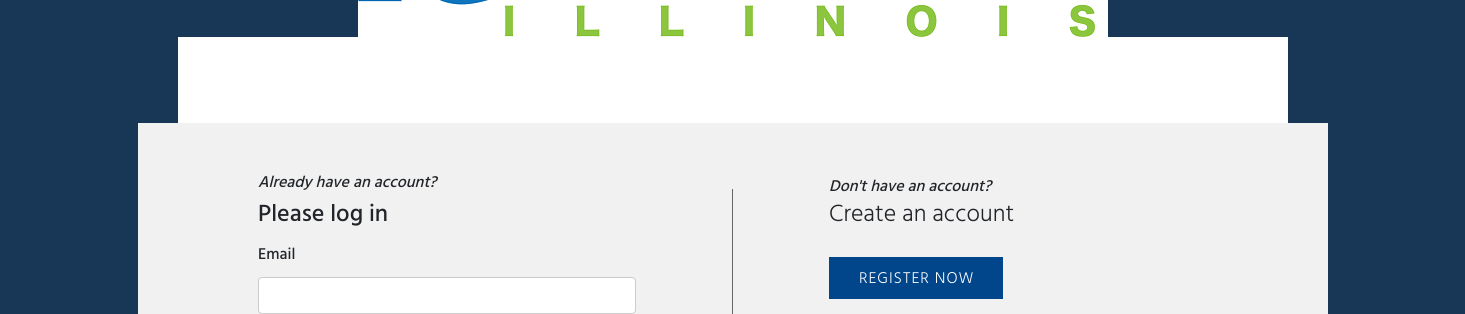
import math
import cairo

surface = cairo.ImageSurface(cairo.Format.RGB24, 1465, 314)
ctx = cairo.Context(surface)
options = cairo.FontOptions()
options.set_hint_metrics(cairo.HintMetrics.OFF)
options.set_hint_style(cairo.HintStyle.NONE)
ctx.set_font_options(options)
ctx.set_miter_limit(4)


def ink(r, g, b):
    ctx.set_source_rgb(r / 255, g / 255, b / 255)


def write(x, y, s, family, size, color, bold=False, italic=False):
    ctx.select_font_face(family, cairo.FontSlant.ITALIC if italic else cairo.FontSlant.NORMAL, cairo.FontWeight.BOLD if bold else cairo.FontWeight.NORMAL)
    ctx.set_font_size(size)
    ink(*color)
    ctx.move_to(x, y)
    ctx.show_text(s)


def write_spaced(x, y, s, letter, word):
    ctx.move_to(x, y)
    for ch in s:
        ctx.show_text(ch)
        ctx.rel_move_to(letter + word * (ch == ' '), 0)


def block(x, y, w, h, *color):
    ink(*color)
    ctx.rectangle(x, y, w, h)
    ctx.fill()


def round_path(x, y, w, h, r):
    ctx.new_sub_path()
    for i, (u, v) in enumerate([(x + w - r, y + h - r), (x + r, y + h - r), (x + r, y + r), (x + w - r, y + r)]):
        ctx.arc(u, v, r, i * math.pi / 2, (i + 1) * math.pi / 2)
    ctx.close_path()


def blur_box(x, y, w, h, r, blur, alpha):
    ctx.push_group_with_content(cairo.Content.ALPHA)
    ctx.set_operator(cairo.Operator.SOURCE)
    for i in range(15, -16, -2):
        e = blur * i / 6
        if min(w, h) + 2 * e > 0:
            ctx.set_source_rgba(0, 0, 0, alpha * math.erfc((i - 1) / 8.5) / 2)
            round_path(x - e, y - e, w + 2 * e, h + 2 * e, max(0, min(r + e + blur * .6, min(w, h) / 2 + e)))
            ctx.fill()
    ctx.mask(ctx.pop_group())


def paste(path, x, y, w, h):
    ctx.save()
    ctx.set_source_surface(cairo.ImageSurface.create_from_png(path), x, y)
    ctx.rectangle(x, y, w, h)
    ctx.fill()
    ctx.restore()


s1 = dict(family="Hind Madurai Medium", size=16, color=(33, 37, 41), italic=True)
s2 = dict(family="Hind Madurai Medium", size=24, color=(33, 37, 41))
s3 = dict(family="Hind Madurai Medium", size=16, color=(33, 37, 41))
s4 = dict(family="Hind Madurai Light", size=24, color=(33, 37, 41))

ink(24, 55, 86)
ctx.paint()
paste("pic1.png", 358, 0, 750, 37)
block(178, 37, 1110, 86, 255, 255, 255)
ink(0, 0, 0)
blur_box(141, 129, 1184, 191, 0, 2, 0.6)
block(138, 123, 1190, 191, 242, 241, 241)
write(258, 187, "Already have an account?", **s1)
write(258, 221, "Please log in", **s2)
write(258, 259, "Email", **s3)
ink(255, 255, 255)
round_path(258.5, 277.5, 377, 36, 3.5)
ctx.fill_preserve()
ink(204, 204, 204)
ctx.set_line_width(1)
ctx.stroke()
block(732, 189, 1, 125, 102, 102, 102)
write(829, 191, "Don't have an account?", **s1)
write(829, 221, "Create an account", **s4)
block(829, 257, 174, 42, 1, 69, 139)
ctx.set_font_size(16)
ink(255, 255, 255)
write_spaced(859, 283, "REGISTER NOW", 1, 0)
surface.write_to_png("screenshot.png")
